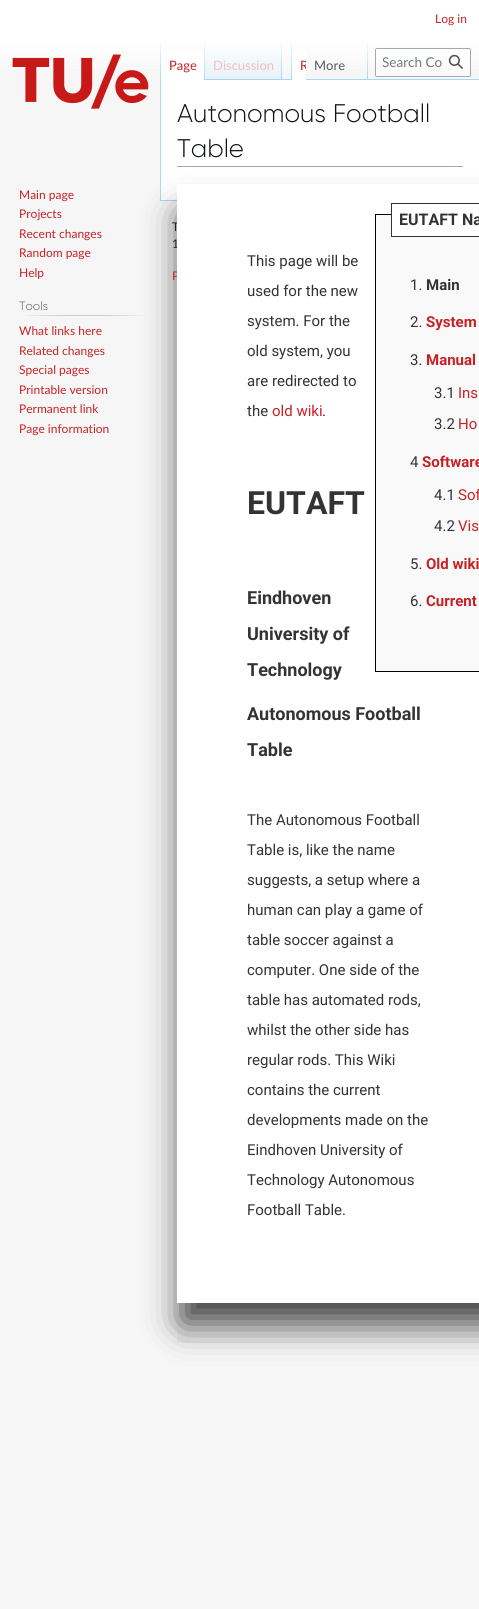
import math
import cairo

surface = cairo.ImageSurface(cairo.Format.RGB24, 479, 1609)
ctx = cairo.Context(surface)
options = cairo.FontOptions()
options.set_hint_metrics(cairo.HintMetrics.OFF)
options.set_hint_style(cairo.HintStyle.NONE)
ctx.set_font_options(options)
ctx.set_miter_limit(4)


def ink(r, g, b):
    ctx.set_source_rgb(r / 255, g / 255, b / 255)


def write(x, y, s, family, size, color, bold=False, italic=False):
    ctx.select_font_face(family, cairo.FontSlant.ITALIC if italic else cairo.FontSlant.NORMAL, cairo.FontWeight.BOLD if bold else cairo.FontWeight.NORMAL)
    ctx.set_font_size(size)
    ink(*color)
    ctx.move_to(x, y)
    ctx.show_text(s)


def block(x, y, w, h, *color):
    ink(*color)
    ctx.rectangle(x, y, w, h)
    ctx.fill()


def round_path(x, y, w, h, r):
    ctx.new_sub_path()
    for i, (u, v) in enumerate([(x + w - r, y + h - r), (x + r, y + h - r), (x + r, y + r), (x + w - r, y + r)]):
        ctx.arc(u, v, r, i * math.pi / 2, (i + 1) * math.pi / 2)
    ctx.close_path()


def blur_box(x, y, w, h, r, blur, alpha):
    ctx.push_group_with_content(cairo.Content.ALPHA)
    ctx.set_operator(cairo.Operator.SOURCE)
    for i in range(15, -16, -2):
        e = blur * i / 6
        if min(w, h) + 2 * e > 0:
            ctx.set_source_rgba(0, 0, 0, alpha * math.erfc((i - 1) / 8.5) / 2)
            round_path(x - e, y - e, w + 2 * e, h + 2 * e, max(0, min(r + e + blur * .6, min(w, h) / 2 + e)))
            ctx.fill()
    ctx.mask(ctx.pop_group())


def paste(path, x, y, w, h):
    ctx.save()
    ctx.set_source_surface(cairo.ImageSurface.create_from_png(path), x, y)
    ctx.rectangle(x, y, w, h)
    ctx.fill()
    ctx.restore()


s1 = dict(family="Lato", size=12, color=(199, 33, 37))
s2 = dict(family="Lato", size=13, color=(199, 33, 37))
s3 = dict(family="Lato", size=13, color=(245, 189, 191))
s4 = dict(family="Lato", size=13, color=(84, 89, 93))
s5 = dict(family="Lato", size=13.5, color=(114, 119, 125))
s6 = dict(family="Gilroy Light", size=12, color=(84, 89, 93))
s7 = dict(family="Lato", size=12, color=(32, 33, 34))
s8 = dict(family="Gilroy Light", size=25.5, color=(16, 20, 24))
s9 = dict(family="Roboto", size=15, color=(51, 51, 51))
s10 = dict(family="Roboto", size=15, color=(199, 33, 37))
s11 = dict(family="Roboto", size=16, color=(51, 51, 51), bold=True)
s12 = dict(family="Roboto", size=15, color=(51, 51, 51), bold=True)
s13 = dict(family="Roboto", size=15, color=(199, 33, 37), bold=True)
s14 = dict(family="Roboto", size=32, color=(51, 51, 51), bold=True)
s15 = dict(family="Roboto", size=18, color=(51, 51, 51), bold=True)

ink(246, 246, 246)
ctx.paint()
gradient = cairo.LinearGradient(240, 0, 240, 80)
gradient.add_color_stop_rgba(0.5, 1, 1, 1, 1)
gradient.add_color_stop_rgba(1, 0.965, 0.965, 0.965, 1)
ctx.set_source(gradient)
ctx.rectangle(0, 0, 479, 69)
ctx.fill()
write(435, 23, "Log in", **s1)
block(160, 200, 17, 1, 167, 215, 249)
block(160, 79, 1, 122, 167, 215, 249)
gradient = cairo.LinearGradient(161, 40, 161, 80)
gradient.add_color_stop_rgba(0, 0.655, 0.843, 0.976, 0)
gradient.add_color_stop_rgba(1, 0.655, 0.843, 0.976, 1)
ctx.set_source(gradient)
ctx.rectangle(160, 40, 1, 40)
ctx.fill()
block(161, 51, 43, 29, 255, 255, 255)
gradient = cairo.LinearGradient(205, 40, 205, 80)
gradient.add_color_stop_rgba(0, 1, 1, 1, 1)
gradient.add_color_stop_rgba(1, 0.655, 0.843, 0.976, 1)
ctx.set_source(gradient)
ctx.rectangle(204, 40, 1, 40)
ctx.fill()
write(169, 70, "Page", **s2)
gradient = cairo.LinearGradient(244, 80, 244, 40)
gradient.add_color_stop_rgba(0, 0.467, 0.757, 0.965, 1)
gradient.add_color_stop_rgba(0.03, 0.91, 0.949, 0.973, 1)
gradient.add_color_stop_rgba(1, 1, 1, 1, 1)
ctx.set_source(gradient)
ctx.rectangle(205, 46, 77, 34)
ctx.fill()
gradient = cairo.LinearGradient(282, 40, 282, 80)
gradient.add_color_stop_rgba(0, 0.655, 0.843, 0.976, 0)
gradient.add_color_stop_rgba(1, 0.655, 0.843, 0.976, 1)
ctx.set_source(gradient)
ctx.rectangle(281, 40, 1, 40)
ctx.fill()
write(213, 70, "Discussion", **s3)
block(282, 79, 197, 1, 167, 215, 249)
gradient = cairo.LinearGradient(292, 40, 292, 80)
gradient.add_color_stop_rgba(0, 0.655, 0.843, 0.976, 0)
gradient.add_color_stop_rgba(1, 0.655, 0.843, 0.976, 1)
ctx.set_source(gradient)
ctx.rectangle(291, 40, 1, 40)
ctx.fill()
block(292, 51, 14, 29, 255, 255, 255)
ctx.save()
ctx.rectangle(292, 40, 14, 40)
ctx.clip()
write(300, 70, "R", **s2)
ctx.restore()
gradient = cairo.LinearGradient(368, 40, 368, 80)
gradient.add_color_stop_rgba(0, 0.655, 0.843, 0.976, 0)
gradient.add_color_stop_rgba(1, 0.655, 0.843, 0.976, 1)
ctx.set_source(gradient)
ctx.rectangle(367, 40, 1, 40)
ctx.fill()
write(314, 70, "More", **s4)
ctx.set_source_rgba(1, 1, 1, 0.5)
round_path(375.5, 48.5, 95, 28, 1.5)
ctx.fill_preserve()
ink(162, 169, 177)
ctx.set_line_width(1)
ctx.stroke()
write(382, 67, "Search Co", **s5)
paste("pic1.png", 448, 54, 15, 15)
paste("pic2.png", 12, 54, 137, 55)
write(19, 199, "Main page", **s1)
write(19, 218, "Projects", **s1)
write(19, 238, "Recent changes", **s1)
write(19, 257, "Random page", **s1)
write(19, 277, "Help", **s1)
block(161, 80, 318, 120, 255, 255, 255)
block(177, 166, 286, 1, 162, 169, 177)
block(177, 1303, 302, 40, 239, 239, 239)
ink(0, 0, 0)
blur_box(182, 214, 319, 1109, 0, 17.5, 0.75)
gradient = cairo.LinearGradient(19, 316, 150, 316)
gradient.add_color_stop_rgba(0, 0.784, 0.8, 0.82, 0)
gradient.add_color_stop_rgba(0.33, 0.784, 0.8, 0.82, 1)
gradient.add_color_stop_rgba(0.66, 0.784, 0.8, 0.82, 1)
gradient.add_color_stop_rgba(1, 0.784, 0.8, 0.82, 0)
ctx.set_source(gradient)
ctx.rectangle(19, 315, 131, 1)
ctx.fill()
write(19, 310, "Tools", **s6)
write(19, 335, "What links here", **s1)
write(19, 355, "Related changes", **s1)
write(19, 374, "Special pages", **s1)
write(19, 394, "Printable version", **s1)
write(19, 413, "Permanent link", **s1)
write(19, 433, "Page information", **s1)
write(172, 231, "T", **s7)
write(172, 248, "1", **s7)
write(172, 280, "P", **s1)
write(177, 122, "Autonomous Football", **s8)
write(177, 157, "Table", **s8)
block(177, 184, 302, 1119, 255, 255, 255)
write(247, 266, "This page will be", **s9)
write(247, 296, "used for the new", **s9)
write(247, 326, "system. For the", **s9)
write(247, 356, "old system, you", **s9)
write(247, 386, "are redirected to", **s9)
write(247, 416, "the", **s9)
write(272, 416, "old wiki", **s10)
write(322, 416, ".", **s9)
ink(249, 249, 249)
ctx.rectangle(375.5, 214.5, 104, 457)
ctx.fill_preserve()
ink(0, 0, 0)
ctx.stroke()
block(392, 214, 87, 22, 255, 255, 255)
ctx.rectangle(391.5, 203.5, 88, 33)
ink(51, 51, 51)
ctx.stroke()
write(399, 225, "EUTAFT Na", **s11)
write(410, 290, "1.", **s9)
write(426, 290, "Main", **s12)
write(410, 327, "2.", **s9)
write(426, 327, "System", **s13)
write(410, 365, "3.", **s9)
write(426, 365, "Manual", **s13)
write(434, 398, "3.1", **s9)
write(458, 398, "Ins", **s10)
write(434, 429, "3.2", **s9)
write(458, 429, "Ho", **s10)
write(410, 467, "4", **s9)
write(422, 467, "Software", **s13)
write(434, 500, "4.1", **s9)
write(458, 500, "Sof", **s10)
write(434, 531, "4.2", **s9)
write(458, 531, "Vis", **s10)
write(410, 569, "5.", **s9)
write(426, 569, "Old wiki", **s13)
write(410, 606, "6.", **s9)
write(426, 606, "Current", **s13)
write(247, 514, "EUTAFT", **s14)
write(247, 604, "Eindhoven", **s15)
write(247, 640, "University of", **s15)
write(247, 676, "Technology", **s15)
write(247, 720, "Autonomous Football", **s15)
write(247, 756, "Table", **s15)
write(247, 825, "The Autonomous Football", **s9)
write(247, 855, "Table is, like the name", **s9)
write(247, 885, "suggests, a setup where a", **s9)
write(247, 915, "human can play a game of", **s9)
write(247, 945, "table soccer against a", **s9)
write(247, 975, "computer. One side of the", **s9)
write(247, 1005, "table has automated rods,", **s9)
write(247, 1035, "whilst the other side has", **s9)
write(247, 1065, "regular rods. This Wiki", **s9)
write(247, 1095, "contains the current", **s9)
write(247, 1125, "developments made on the", **s9)
write(247, 1155, "Eindhoven University of", **s9)
write(247, 1185, "Technology Autonomous", **s9)
write(247, 1215, "Football Table.", **s9)
surface.write_to_png("screenshot.png")
